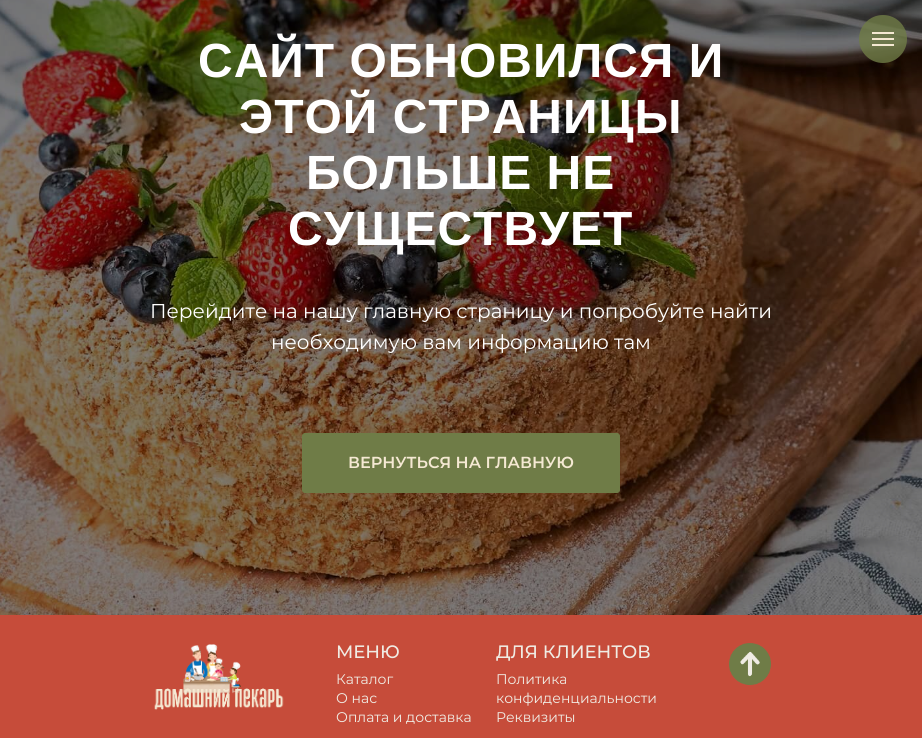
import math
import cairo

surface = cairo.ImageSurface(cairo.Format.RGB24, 922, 738)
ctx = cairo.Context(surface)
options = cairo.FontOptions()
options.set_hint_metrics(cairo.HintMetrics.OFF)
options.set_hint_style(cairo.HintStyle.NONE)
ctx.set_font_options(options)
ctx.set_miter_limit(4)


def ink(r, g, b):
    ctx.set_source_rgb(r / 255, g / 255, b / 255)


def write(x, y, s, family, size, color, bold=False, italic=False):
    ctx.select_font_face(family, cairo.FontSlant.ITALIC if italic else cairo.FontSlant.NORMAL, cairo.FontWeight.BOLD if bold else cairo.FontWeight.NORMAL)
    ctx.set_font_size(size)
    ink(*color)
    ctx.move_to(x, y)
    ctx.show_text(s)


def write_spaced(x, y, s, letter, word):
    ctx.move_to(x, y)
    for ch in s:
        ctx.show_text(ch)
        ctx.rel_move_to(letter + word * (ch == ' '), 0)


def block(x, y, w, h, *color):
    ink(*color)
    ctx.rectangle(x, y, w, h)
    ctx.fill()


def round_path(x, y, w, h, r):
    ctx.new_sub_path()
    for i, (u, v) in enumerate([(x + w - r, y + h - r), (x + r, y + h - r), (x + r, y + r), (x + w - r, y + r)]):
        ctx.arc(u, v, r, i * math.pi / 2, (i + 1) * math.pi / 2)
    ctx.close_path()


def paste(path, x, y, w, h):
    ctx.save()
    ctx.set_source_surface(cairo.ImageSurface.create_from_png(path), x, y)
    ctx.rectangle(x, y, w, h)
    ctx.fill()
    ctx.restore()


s1 = dict(family="Montserrat", size=20, color=(255, 255, 255))
s2 = dict(family="Montserrat SemiBold", size=16, color=(245, 233, 211))
s3 = dict(family="Montserrat Medium", size=18, color=(240, 236, 228))
s4 = dict(family="Montserrat", size=14, color=(240, 236, 228))

ink(255, 255, 255)
ctx.paint()
paste("pic1.png", 0, 0, 922, 615)
ctx.select_font_face("Liberation Sans", cairo.FontSlant.NORMAL, cairo.FontWeight.BOLD)
ctx.set_font_size(48)
ink(255, 255, 255)
write_spaced(198, 77, "САЙТ ОБНОВИЛСЯ И", 1, 0)
write_spaced(239, 133, "ЭТОЙ СТРАНИЦЫ", 1, 0)
write_spaced(306, 189, "БОЛЬШЕ НЕ", 1, 0)
write_spaced(288, 245, "СУЩЕСТВУЕТ", 1, 0)
write(150, 318, "Перейдите на нашу главную страницу и попробуйте найти", **s1)
write(271, 349, "необходимую вам информацию там", **s1)
ink(111, 124, 71)
round_path(302.5, 433.5, 317, 59, 2.5)
ctx.fill_preserve()
ctx.set_line_width(1)
ctx.stroke()
write(348, 468, "ВЕРНУТЬСЯ НА ГЛАВНУЮ", **s2)
ctx.set_source_rgba(0.435, 0.486, 0.278, 0.8)
ctx.new_path()
ctx.arc(883, 39, 24, 0, 2 * math.pi)
ctx.fill()
block(872, 32, 22, 2, 245, 233, 211)
block(872, 38, 22, 2, 245, 233, 211)
block(872, 44, 22, 2, 245, 233, 211)
block(0, 615, 922, 123, 198, 76, 58)
paste("pic2.png", 154, 644, 130, 66)
write(336, 658, "МЕНЮ", **s3)
write(496, 658, "ДЛЯ КЛИЕНТОВ", **s3)
paste("pic3.png", 728, 643, 43, 43)
write(336, 684, "Каталог", **s4)
write(336, 703, "О нас", **s4)
write(336, 722, "Оплата и доставка", **s4)
write(496, 684, "Политика", **s4)
write(496, 703, "конфиденциальности", **s4)
write(496, 722, "Реквизиты", **s4)
surface.write_to_png("screenshot.png")
